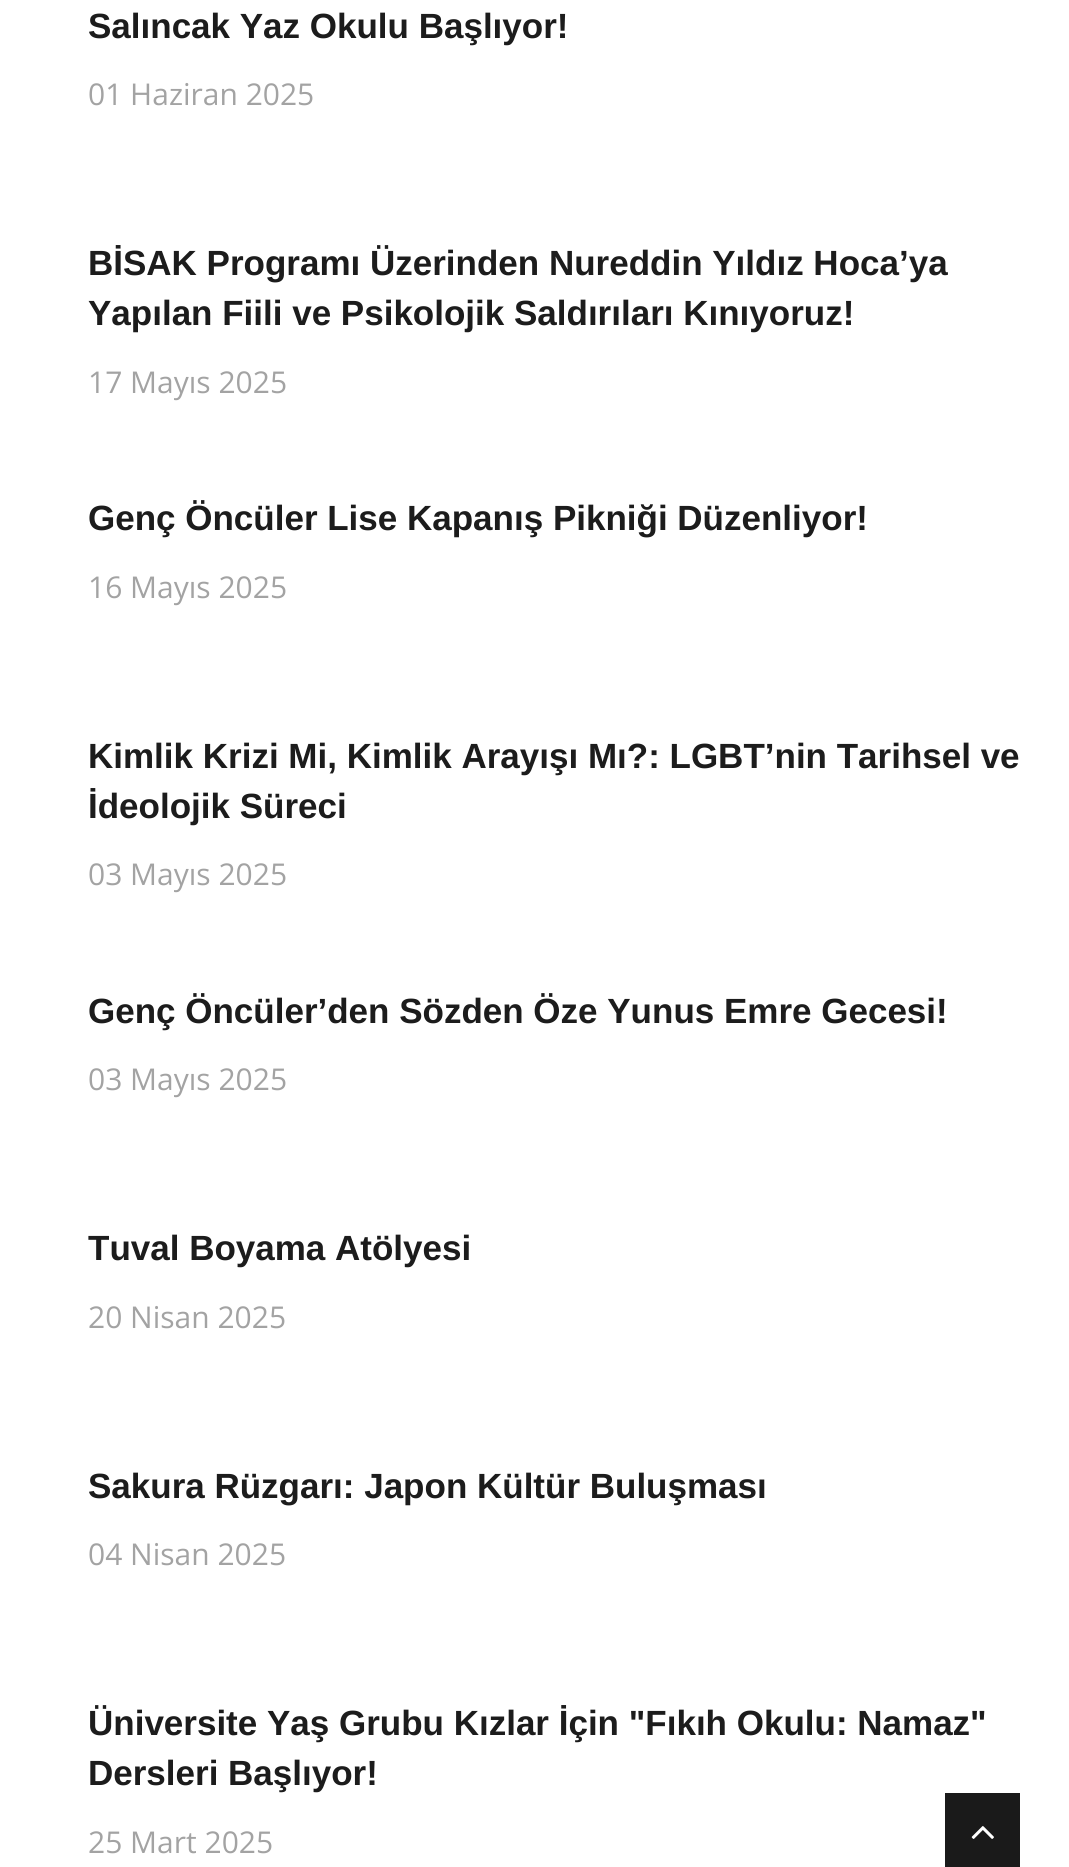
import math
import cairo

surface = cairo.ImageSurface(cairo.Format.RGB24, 1069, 1867)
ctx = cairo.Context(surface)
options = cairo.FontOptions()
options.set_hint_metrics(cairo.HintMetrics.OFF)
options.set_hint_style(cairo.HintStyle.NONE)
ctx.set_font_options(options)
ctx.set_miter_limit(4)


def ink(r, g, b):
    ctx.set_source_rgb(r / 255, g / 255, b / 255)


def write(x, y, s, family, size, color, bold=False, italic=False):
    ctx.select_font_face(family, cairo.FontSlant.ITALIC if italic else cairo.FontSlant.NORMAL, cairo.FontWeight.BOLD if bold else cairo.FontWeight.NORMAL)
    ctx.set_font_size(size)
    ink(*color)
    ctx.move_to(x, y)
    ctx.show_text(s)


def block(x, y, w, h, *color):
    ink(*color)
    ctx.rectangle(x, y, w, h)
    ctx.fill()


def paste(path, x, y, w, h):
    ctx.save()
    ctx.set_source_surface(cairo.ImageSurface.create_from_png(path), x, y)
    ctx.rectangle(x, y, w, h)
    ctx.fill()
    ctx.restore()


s1 = dict(family="Arimo", size=35, color=(28, 28, 28), bold=True)
s2 = dict(family="Open Sans", size=30, color=(163, 163, 163))

ink(255, 255, 255)
ctx.paint()
write(88, 38, "Salıncak Yaz Okulu Başlıyor!", **s1)
write(88, 105, "01 Haziran 2025", **s2)
write(88, 275, "BİSAK Programı Üzerinden Nureddin Yıldız Hoca’ya", **s1)
write(88, 325, "Yapılan Fiili ve Psikolojik Saldırıları Kınıyoruz!", **s1)
write(88, 393, "17 Mayıs 2025", **s2)
write(88, 530, "Genç Öncüler Lise Kapanış Pikniği Düzenliyor!", **s1)
write(88, 598, "16 Mayıs 2025", **s2)
write(88, 768, "Kimlik Krizi Mi, Kimlik Arayışı Mı?: LGBT’nin Tarihsel ve", **s1)
write(88, 818, "İdeolojik Süreci", **s1)
write(88, 885, "03 Mayıs 2025", **s2)
write(88, 1023, "Genç Öncüler’den Sözden Öze Yunus Emre Gecesi!", **s1)
write(88, 1090, "03 Mayıs 2025", **s2)
write(88, 1260, "Tuval Boyama Atölyesi", **s1)
write(88, 1328, "20 Nisan 2025", **s2)
write(88, 1498, "Sakura Rüzgarı: Japon Kültür Buluşması", **s1)
write(88, 1565, "04 Nisan 2025", **s2)
write(88, 1735, "Üniversite Yaş Grubu Kızlar İçin \"Fıkıh Okulu: Namaz\"", **s1)
write(88, 1785, "Dersleri Başlıyor!", **s1)
write(88, 1853, "25 Mart 2025", **s2)
block(945, 1793, 75, 74, 26, 26, 26)
paste("pic1.png", 971, 1826, 23, 13)
surface.write_to_png("screenshot.png")
